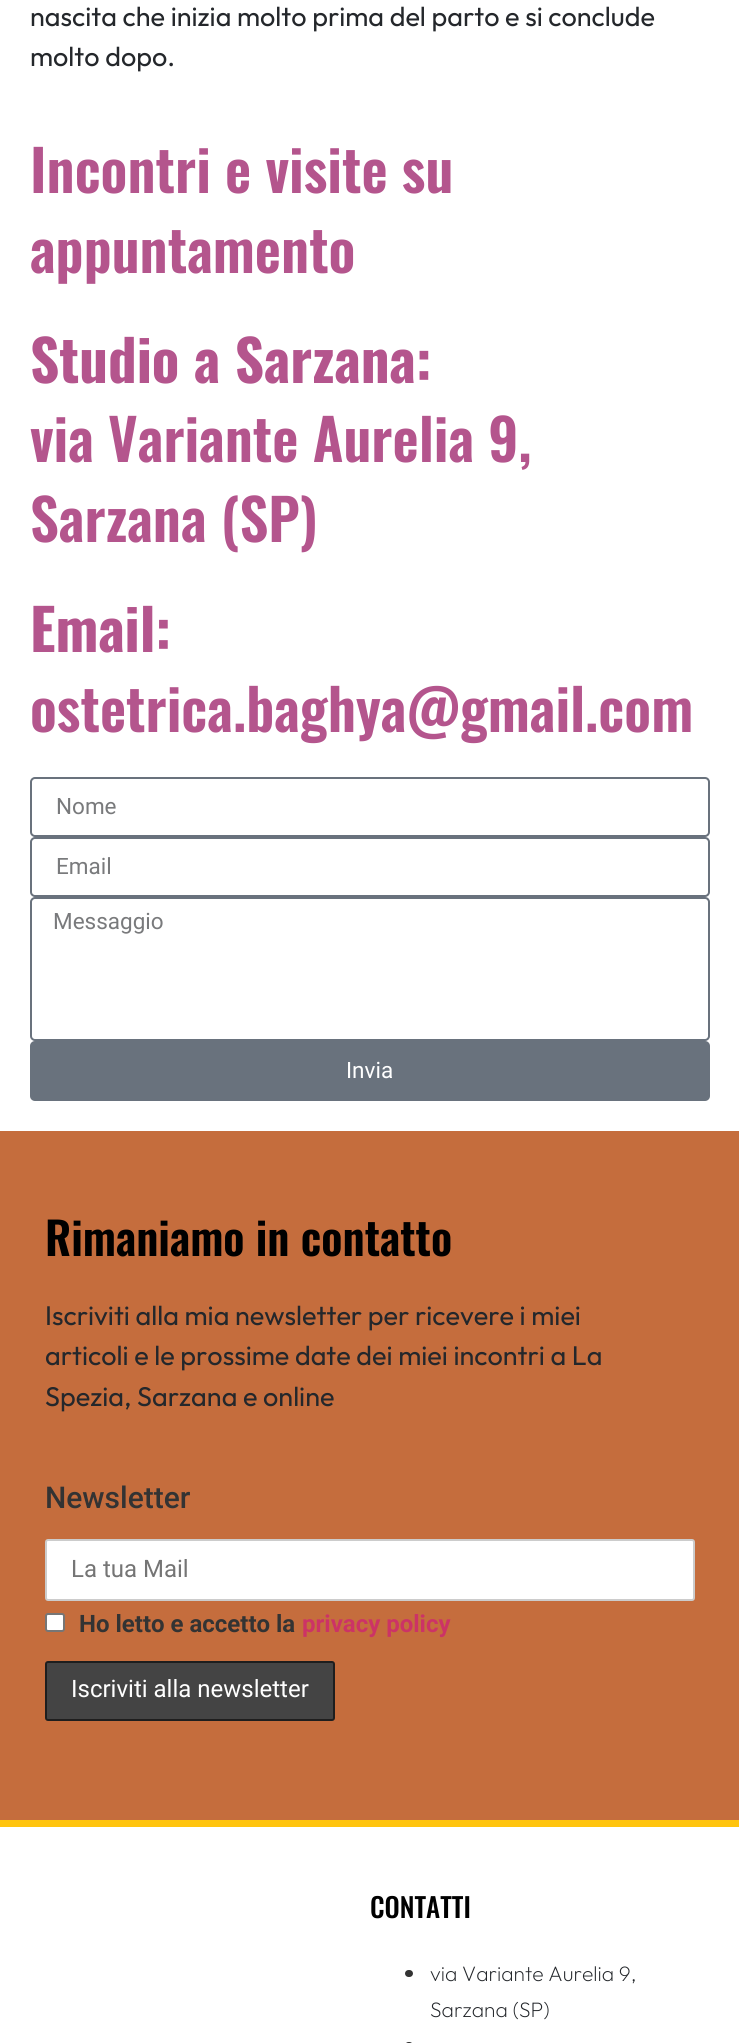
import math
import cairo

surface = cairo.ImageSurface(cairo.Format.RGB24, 739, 2043)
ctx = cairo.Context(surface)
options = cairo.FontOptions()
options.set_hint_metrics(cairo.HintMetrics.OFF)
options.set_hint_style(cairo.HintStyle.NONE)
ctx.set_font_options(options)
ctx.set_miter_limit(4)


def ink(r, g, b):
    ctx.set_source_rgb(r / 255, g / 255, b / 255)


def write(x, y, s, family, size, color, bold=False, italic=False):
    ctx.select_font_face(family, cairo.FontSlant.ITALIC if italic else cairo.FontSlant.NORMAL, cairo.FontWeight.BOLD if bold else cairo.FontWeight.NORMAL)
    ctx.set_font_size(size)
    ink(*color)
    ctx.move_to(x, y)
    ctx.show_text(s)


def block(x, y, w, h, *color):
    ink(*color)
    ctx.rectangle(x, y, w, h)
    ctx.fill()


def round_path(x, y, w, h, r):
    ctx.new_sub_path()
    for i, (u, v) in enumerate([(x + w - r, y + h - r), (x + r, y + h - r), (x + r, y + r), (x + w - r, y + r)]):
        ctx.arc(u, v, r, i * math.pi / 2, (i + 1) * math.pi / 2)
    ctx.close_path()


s1 = dict(family="Outfit", size=27, color=(36, 39, 43))
s2 = dict(family="Oswald SemiBold", size=57, color=(180, 85, 141))
s3 = dict(family="Oswald", size=57, color=(180, 85, 141), bold=True)
s4 = dict(family="Roboto", size=22.5, color=(121, 122, 124))
s5 = dict(family="Roboto", size=22.5, color=(255, 255, 255))
s6 = dict(family="Oswald SemiBold", size=45, color=(0, 0, 0))
s7 = dict(family="Roboto Medium", size=30, color=(51, 51, 51))
s8 = dict(family="Roboto", size=24, color=(117, 117, 117))
s9 = dict(family="Roboto", size=24, color=(51, 51, 51), bold=True)
s10 = dict(family="Roboto", size=24, color=(204, 51, 102), bold=True)
s11 = dict(family="Roboto", size=24, color=(255, 255, 255))
s12 = dict(family="Oswald Medium", size=27, color=(0, 0, 0))
s13 = dict(family="Outfit ExtraLight", size=21, color=(36, 39, 43))

ink(255, 255, 255)
ctx.paint()
write(30, 26, "nascita che inizia molto prima del parto e si conclude", **s1)
write(30, 66, "molto dopo.", **s1)
write(30, 193, "Incontri e visite su", **s2)
write(30, 273, "appuntamento", **s2)
write(30, 383, "Studio a Sarzana:", **s3)
write(30, 462, "via Variante Aurelia 9,", **s2)
write(30, 542, "Sarzana (SP)", **s2)
write(30, 652, "Email:", **s3)
write(30, 732, "ostetrica.baghya@gmail.com", **s2)
round_path(31, 778, 678, 58, 4)
ink(105, 114, 125)
ctx.stroke()
write(56, 814, "Nome", **s4)
round_path(31, 838, 678, 58, 4)
ink(105, 114, 125)
ctx.stroke()
write(56, 874, "Email", **s4)
round_path(31, 898, 678, 142, 4)
ink(105, 114, 125)
ctx.stroke()
write(53, 929, "Messaggio", **s4)
ink(105, 114, 125)
round_path(30, 1041, 680, 60, 5)
ctx.fill()
write(346, 1078, "Invia", **s5)
block(0, 1131, 739, 689, 197, 109, 61)
write(45, 1256, "Rimaniamo in contatto", **s6)
write(45, 1325, "Iscriviti alla mia newsletter per ricevere i miei", **s1)
write(45, 1365, "articoli e le prossime date dei miei incontri a La", **s1)
write(45, 1406, "Spezia, Sarzana e online", **s1)
write(45, 1508, "Newsletter", **s7)
ink(255, 255, 255)
round_path(46, 1540, 648, 60, 2)
ctx.fill_preserve()
ink(204, 204, 204)
ctx.stroke()
write(71, 1577, "La tua Mail", **s8)
ink(255, 255, 255)
round_path(46, 1614, 18, 17, 2)
ctx.fill_preserve()
ink(118, 118, 118)
ctx.stroke()
write(79, 1632, "Ho letto e accetto la", **s9)
write(302, 1632, "privacy policy", **s10)
ink(68, 68, 68)
round_path(46, 1662, 288, 58, 2)
ctx.fill_preserve()
ink(30, 30, 30)
ctx.stroke()
write(71, 1697, "Iscriviti alla newsletter", **s11)
block(0, 1820, 739, 7, 255, 196, 14)
write(370, 1918, "CONTATTI", **s12)
ink(51, 51, 51)
round_path(405, 1970, 8, 7, 3.5)
ctx.fill()
write(430, 1981, "via Variante Aurelia 9,", **s13)
write(430, 2017, "Sarzana (SP)", **s13)
ink(51, 51, 51)
round_path(405, 2042, 8, 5, 3.5)
ctx.fill()
surface.write_to_png("screenshot.png")
